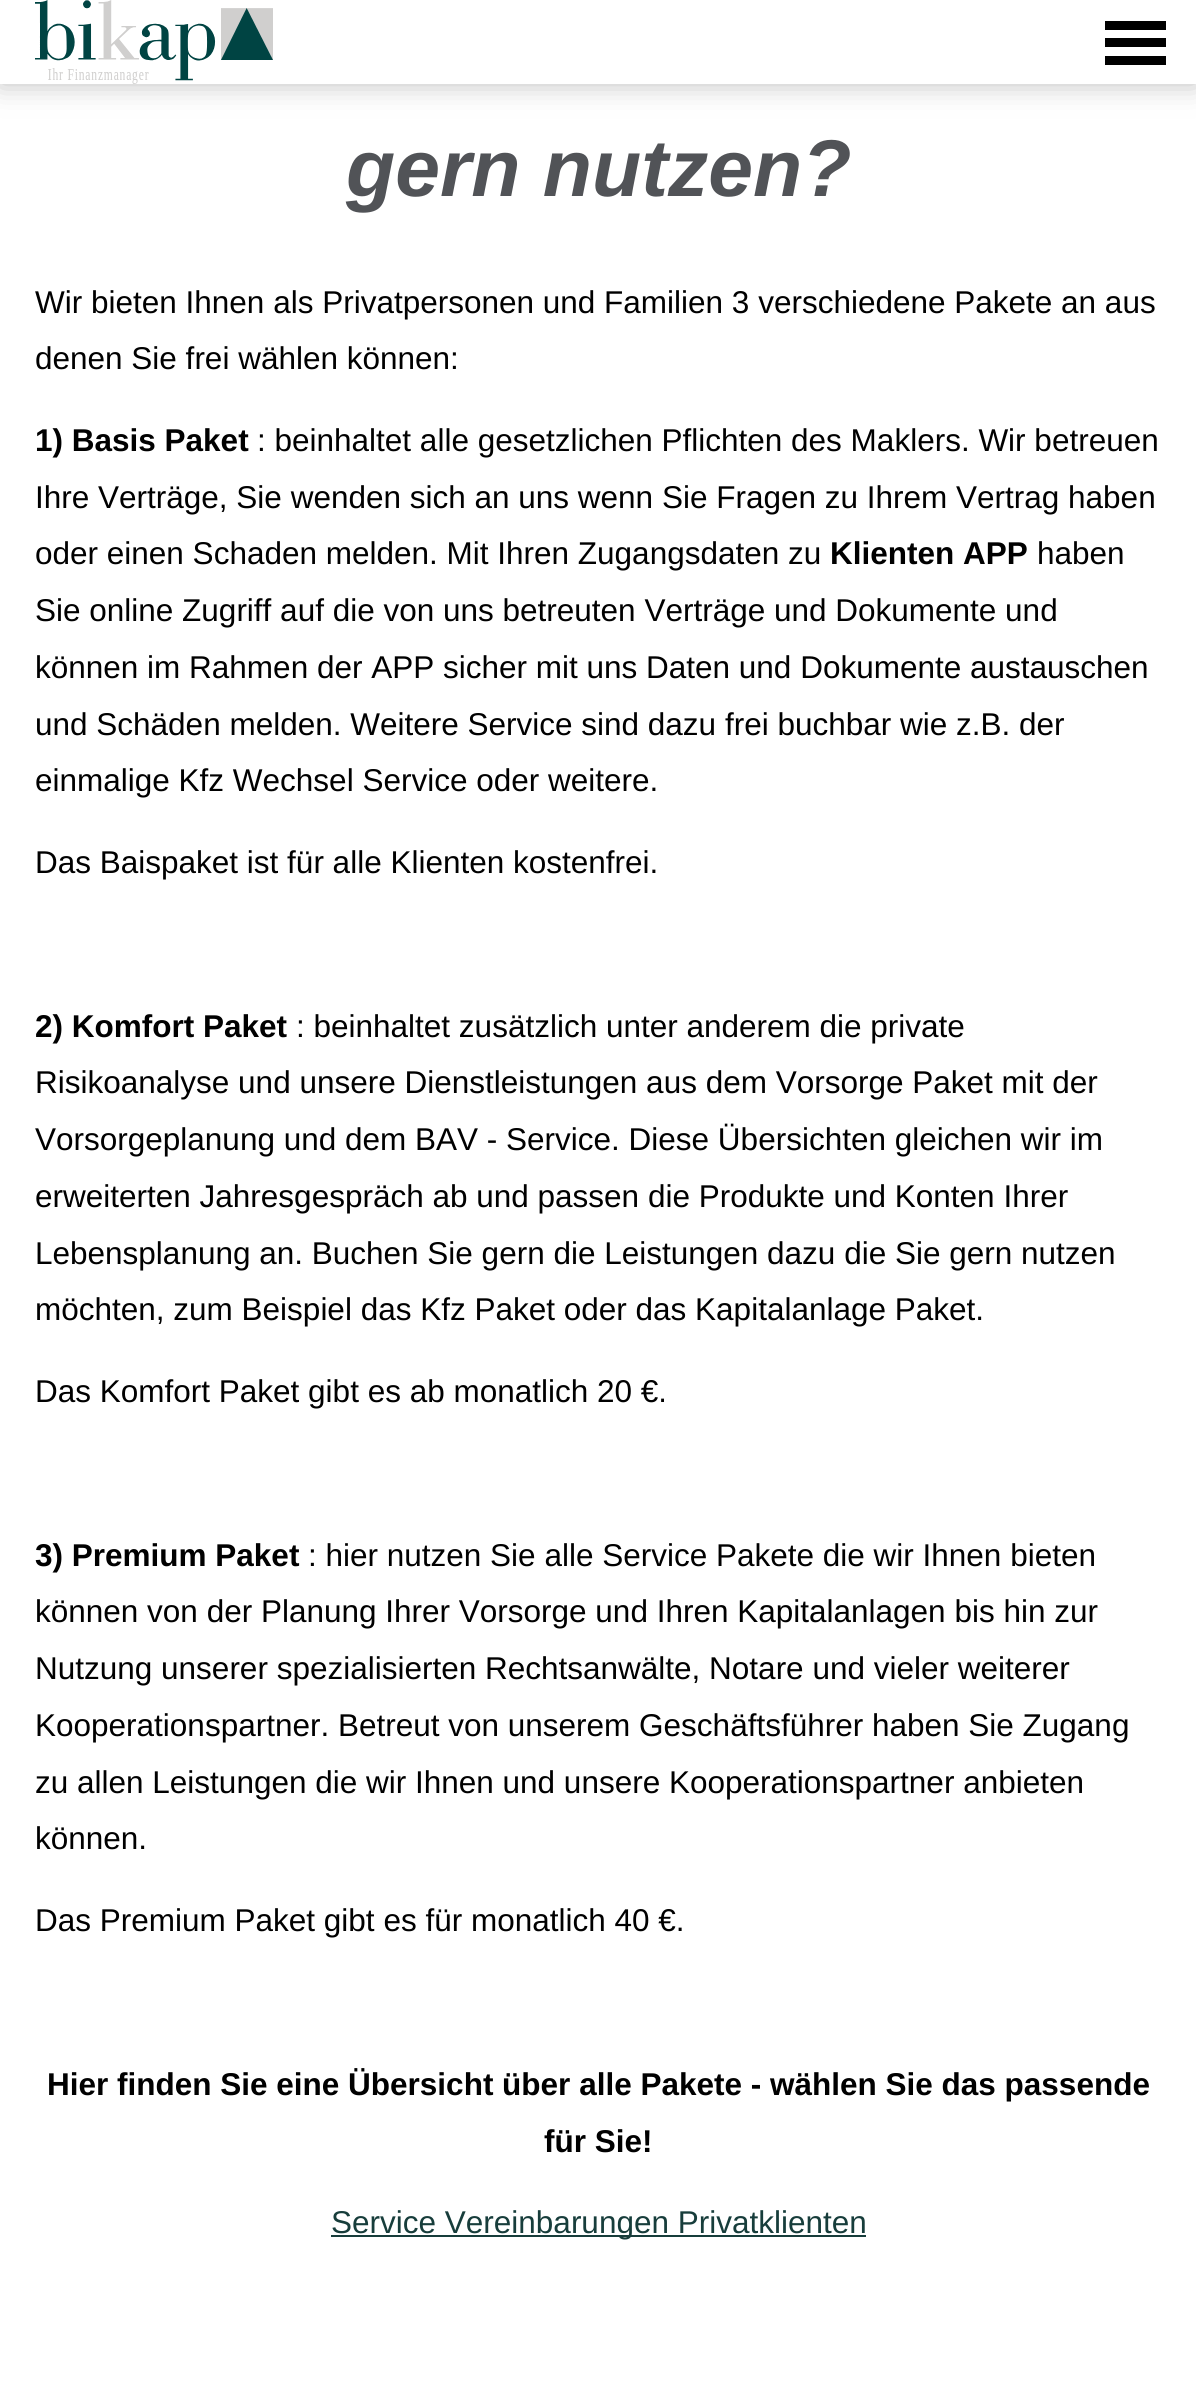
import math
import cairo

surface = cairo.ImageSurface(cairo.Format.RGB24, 1196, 2402)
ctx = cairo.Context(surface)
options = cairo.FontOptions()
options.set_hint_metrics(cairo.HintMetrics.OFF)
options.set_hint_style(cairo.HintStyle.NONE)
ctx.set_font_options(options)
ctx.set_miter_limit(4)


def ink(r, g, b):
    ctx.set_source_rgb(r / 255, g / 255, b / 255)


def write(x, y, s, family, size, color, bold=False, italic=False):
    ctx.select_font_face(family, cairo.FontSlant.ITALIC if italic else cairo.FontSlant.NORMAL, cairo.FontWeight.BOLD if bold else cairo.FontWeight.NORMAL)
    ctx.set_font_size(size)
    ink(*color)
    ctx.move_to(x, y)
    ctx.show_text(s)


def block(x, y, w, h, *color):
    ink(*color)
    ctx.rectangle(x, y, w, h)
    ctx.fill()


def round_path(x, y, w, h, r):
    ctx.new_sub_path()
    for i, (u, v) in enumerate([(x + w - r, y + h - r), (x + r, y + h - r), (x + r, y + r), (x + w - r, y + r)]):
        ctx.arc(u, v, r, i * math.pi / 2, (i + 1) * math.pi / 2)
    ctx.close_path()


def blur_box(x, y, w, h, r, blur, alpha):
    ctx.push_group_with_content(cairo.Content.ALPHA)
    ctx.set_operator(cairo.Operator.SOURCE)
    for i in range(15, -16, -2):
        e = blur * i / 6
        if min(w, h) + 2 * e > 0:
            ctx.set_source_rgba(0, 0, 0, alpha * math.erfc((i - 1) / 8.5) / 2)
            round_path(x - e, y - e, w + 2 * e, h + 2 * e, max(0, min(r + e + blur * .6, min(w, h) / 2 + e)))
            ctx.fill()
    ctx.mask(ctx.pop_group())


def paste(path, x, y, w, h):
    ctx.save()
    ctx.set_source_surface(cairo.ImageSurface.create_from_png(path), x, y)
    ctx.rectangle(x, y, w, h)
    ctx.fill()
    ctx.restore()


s1 = dict(family="Liberation Sans", size=80.5, color=(81, 83, 87), bold=True, italic=True)
s2 = dict(family="Liberation Sans", size=31.5, color=(0, 0, 0))
s3 = dict(family="Liberation Sans", size=31.5, color=(0, 0, 0), bold=True)
s4 = dict(family="Liberation Sans", size=31.5, color=(23, 61, 59))

ink(255, 255, 255)
ctx.paint()
ink(90, 90, 90)
blur_box(0, 0, 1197, 84, 0, 14, 0.4)
block(0, 0, 1196, 84, 255, 255, 255)
paste("pic1.png", 35, 0, 238, 84)
ink(0, 0, 0)
ctx.new_path()
ctx.move_to(1105, 21)
ctx.line_to(1166, 21)
ctx.line_to(1166, 30)
ctx.line_to(1105, 30)
ctx.close_path()
ctx.move_to(1105, 38)
ctx.line_to(1166, 38)
ctx.line_to(1166, 47)
ctx.line_to(1105, 47)
ctx.close_path()
ctx.move_to(1105, 56)
ctx.line_to(1166, 56)
ctx.line_to(1166, 65)
ctx.line_to(1105, 65)
ctx.close_path()
ctx.fill()
write(346, 196, "gern nutzen?", **s1)
write(35, 313, "Wir bieten Ihnen als Privatpersonen und Familien 3 verschiedene Pakete an aus", **s2)
write(35, 369, "denen Sie frei wählen können:", **s2)
write(35, 451, "1) Basis Paket", **s3)
write(257, 451, ": beinhaltet alle gesetzlichen Pflichten des Maklers. Wir betreuen", **s2)
write(35, 508, "Ihre Verträge, Sie wenden sich an uns wenn Sie Fragen zu Ihrem Vertrag haben", **s2)
write(35, 564, "oder einen Schaden melden. Mit Ihren Zugangsdaten zu", **s2)
write(830, 564, "Klienten APP", **s3)
write(1037, 564, "haben", **s2)
write(35, 621, "Sie online Zugriff auf die von uns betreuten Verträge und Dokumente und", **s2)
write(35, 678, "können im Rahmen der APP sicher mit uns Daten und Dokumente austauschen", **s2)
write(35, 735, "und Schäden melden. Weitere Service sind dazu frei buchbar wie z.B. der", **s2)
write(35, 791, "einmalige Kfz Wechsel Service oder weitere.", **s2)
write(35, 873, "Das Baispaket ist für alle Klienten kostenfrei.", **s2)
write(35, 1037, "2) Komfort Paket", **s3)
write(296, 1037, ": beinhaltet zusätzlich unter anderem die private", **s2)
write(35, 1093, "Risikoanalyse und unsere Dienstleistungen aus dem Vorsorge Paket mit der", **s2)
write(35, 1150, "Vorsorgeplanung und dem BAV - Service. Diese Übersichten gleichen wir im", **s2)
write(35, 1207, "erweiterten Jahresgespräch ab und passen die Produkte und Konten Ihrer", **s2)
write(35, 1264, "Lebensplanung an. Buchen Sie gern die Leistungen dazu die Sie gern nutzen", **s2)
write(35, 1320, "möchten, zum Beispiel das Kfz Paket oder das Kapitalanlage Paket.", **s2)
write(35, 1402, "Das Komfort Paket gibt es ab monatlich 20 €.", **s2)
write(35, 1566, "3) Premium Paket", **s3)
write(308, 1566, ": hier nutzen Sie alle Service Pakete die wir Ihnen bieten", **s2)
write(35, 1622, "können von der Planung Ihrer Vorsorge und Ihren Kapitalanlagen bis hin zur", **s2)
write(35, 1679, "Nutzung unserer spezialisierten Rechtsanwälte, Notare und vieler weiterer", **s2)
write(35, 1736, "Kooperationspartner. Betreut von unserem Geschäftsführer haben Sie Zugang", **s2)
write(35, 1793, "zu allen Leistungen die wir Ihnen und unsere Kooperationspartner anbieten", **s2)
write(35, 1849, "können.", **s2)
write(35, 1931, "Das Premium Paket gibt es für monatlich 40 €.", **s2)
write(47, 2095, "Hier finden Sie eine Übersicht über alle Pakete - wählen Sie das passende", **s3)
write(544, 2152, "für Sie!", **s3)
block(331, 2235, 535, 2, 23, 61, 59)
write(331, 2233, "Service Vereinbarungen Privatklienten", **s4)
surface.write_to_png("screenshot.png")
